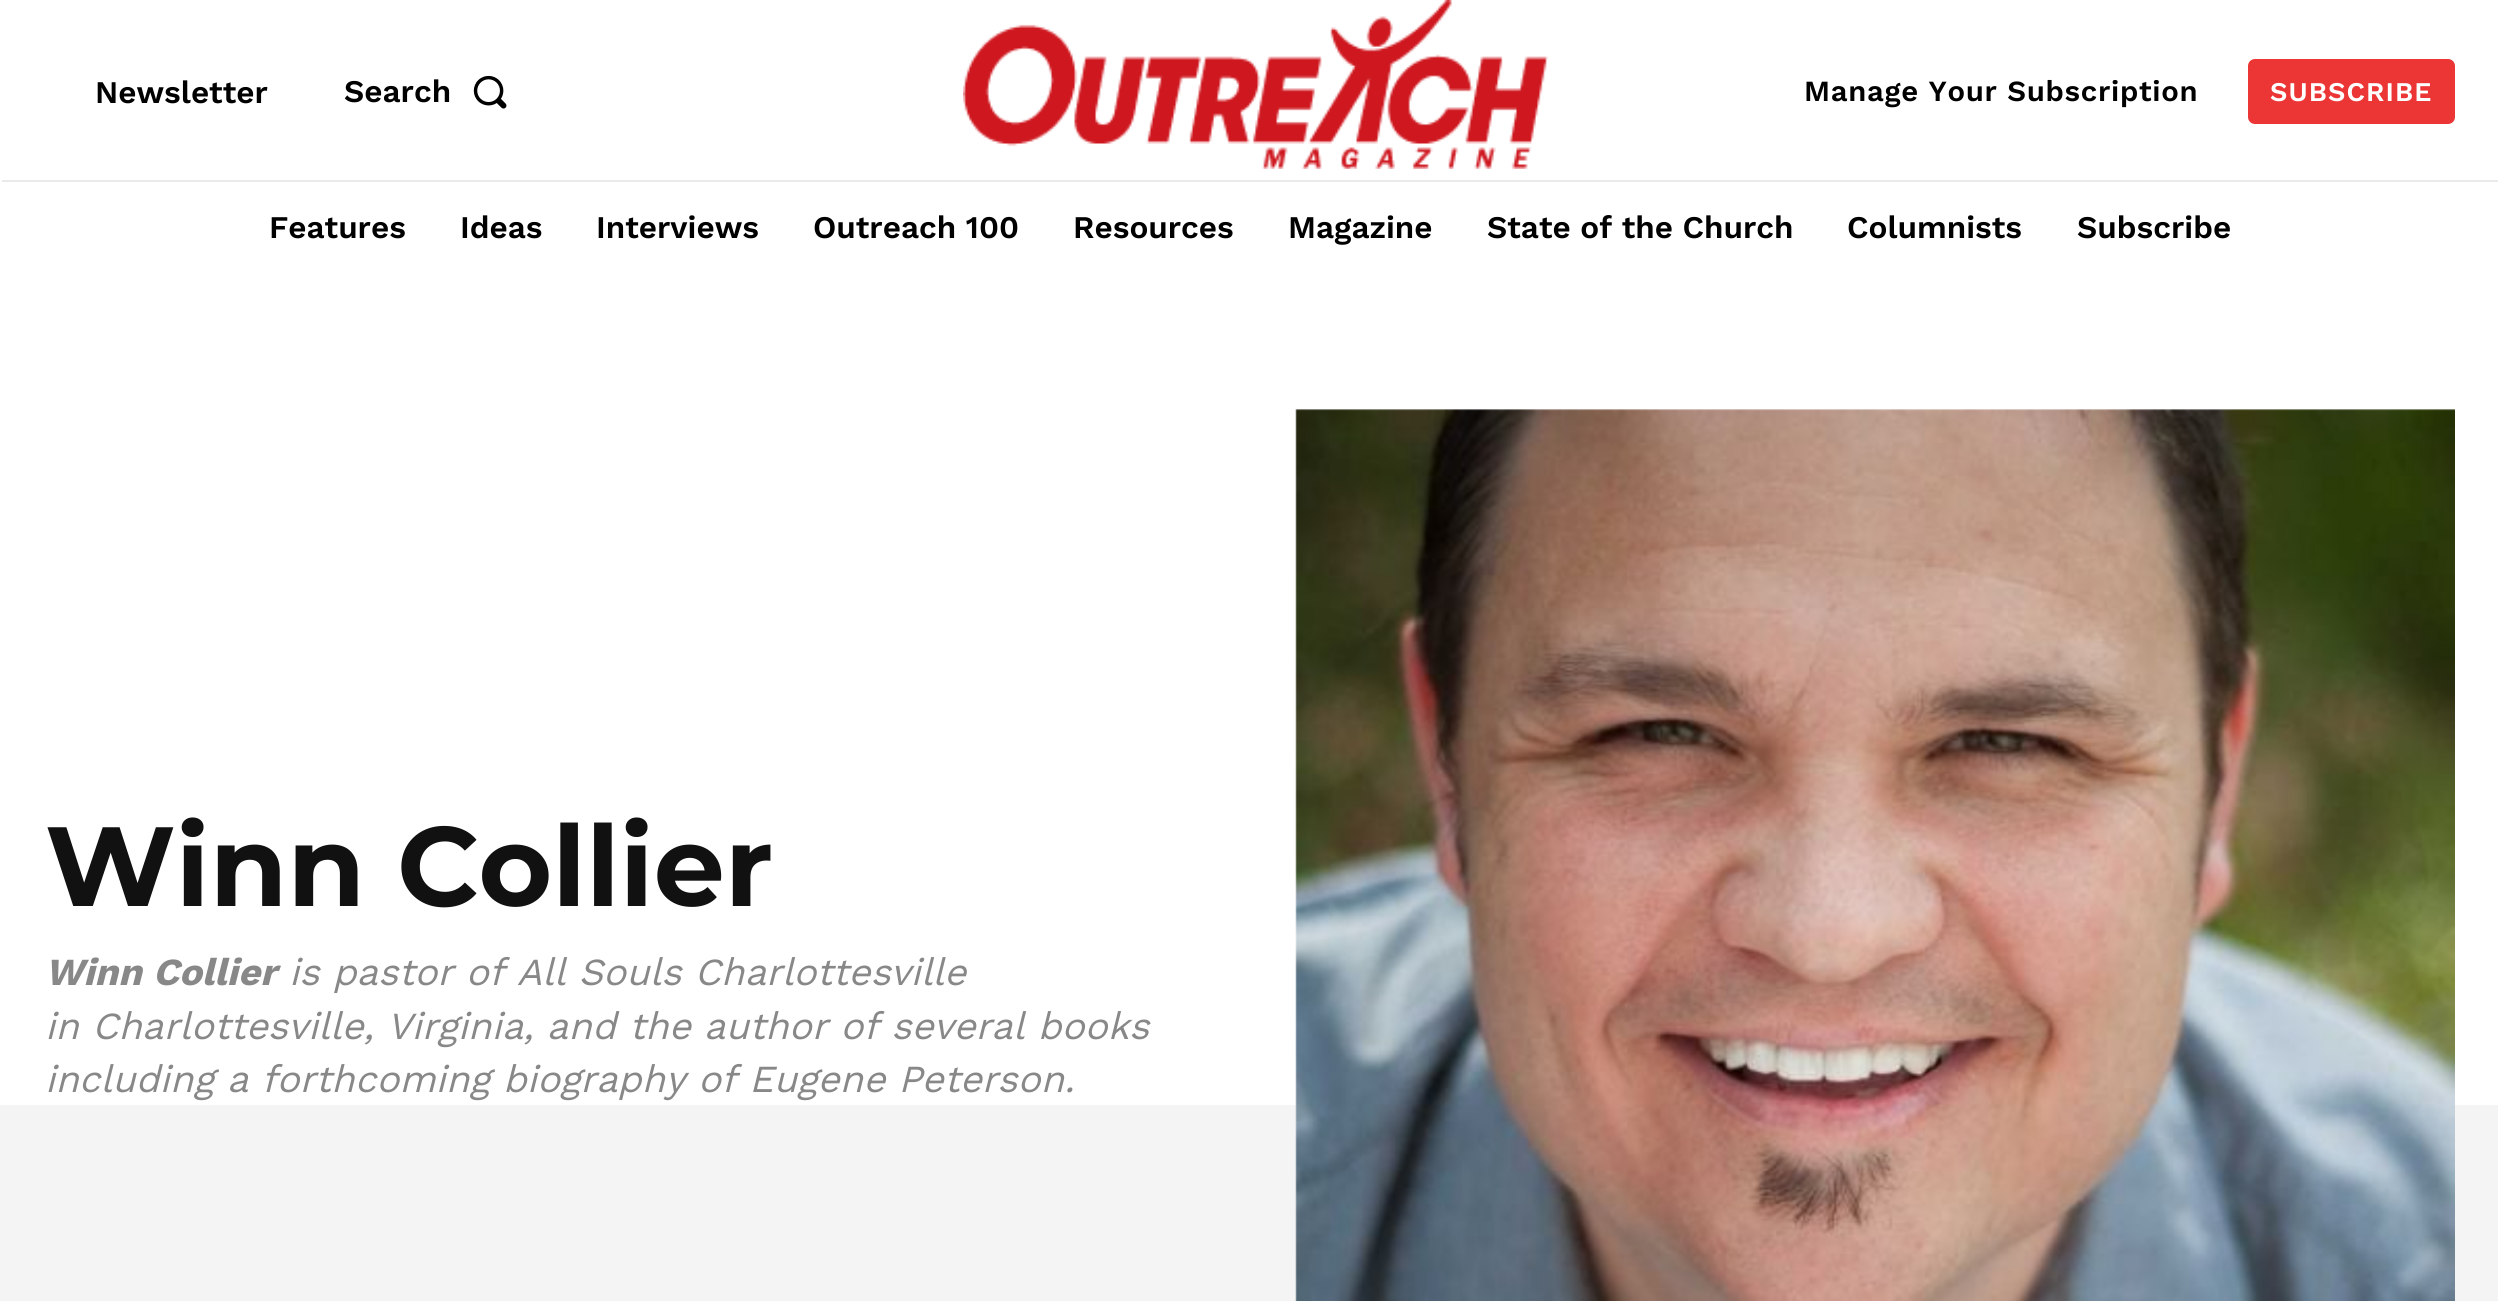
import math
import cairo

surface = cairo.ImageSurface(cairo.Format.RGB24, 2498, 1301)
ctx = cairo.Context(surface)
options = cairo.FontOptions()
options.set_hint_metrics(cairo.HintMetrics.OFF)
options.set_hint_style(cairo.HintStyle.NONE)
ctx.set_font_options(options)
ctx.set_miter_limit(4)


def ink(r, g, b):
    ctx.set_source_rgb(r / 255, g / 255, b / 255)


def write(x, y, s, family, size, color, bold=False, italic=False):
    ctx.select_font_face(family, cairo.FontSlant.ITALIC if italic else cairo.FontSlant.NORMAL, cairo.FontWeight.BOLD if bold else cairo.FontWeight.NORMAL)
    ctx.set_font_size(size)
    ink(*color)
    ctx.move_to(x, y)
    ctx.show_text(s)


def write_spaced(x, y, s, letter, word):
    ctx.move_to(x, y)
    for ch in s:
        ctx.show_text(ch)
        ctx.rel_move_to(letter + word * (ch == ' '), 0)


def block(x, y, w, h, *color):
    ink(*color)
    ctx.rectangle(x, y, w, h)
    ctx.fill()


def round_path(x, y, w, h, r):
    ctx.new_sub_path()
    for i, (u, v) in enumerate([(x + w - r, y + h - r), (x + r, y + h - r), (x + r, y + r), (x + w - r, y + r)]):
        ctx.arc(u, v, r, i * math.pi / 2, (i + 1) * math.pi / 2)
    ctx.close_path()


def paste(path, x, y, w, h):
    ctx.save()
    ctx.set_source_surface(cairo.ImageSurface.create_from_png(path), x, y)
    ctx.rectangle(x, y, w, h)
    ctx.fill()
    ctx.restore()


s1 = dict(family="Work Sans SemiBold", size=31.5, color=(0, 0, 0))
s2 = dict(family="Montserrat", size=112.5, color=(17, 17, 17), bold=True)
s3 = dict(family="Work Sans", size=38.25, color=(136, 136, 136), bold=True, italic=True)
s4 = dict(family="Work Sans", size=38.25, color=(136, 136, 136), italic=True)

ink(255, 255, 255)
ctx.paint()
write(95, 103, "Newsletter", **s1)
write(344, 102, "Search", **s1)
paste("pic1.png", 473, 75, 34, 34)
paste("pic2.png", 963, 0, 585, 169)
ctx.set_font_size(29.25)
write_spaced(1804, 101, "Manage Your Subscription", 0.7, 0)
ink(236, 53, 53)
round_path(2248, 59, 207, 65, 7)
ctx.fill()
ctx.set_font_size(27)
ink(255, 255, 255)
write_spaced(2270, 101, "SUBSCRIBE", 1.1, 0)
block(2, 180, 2496, 2, 234, 234, 234)
write(269, 238, "Features", **s1)
write(460, 238, "Ideas", **s1)
write(596, 238, "Interviews", **s1)
write(813, 238, "Outreach 100", **s1)
write(1073, 238, "Resources", **s1)
write(1288, 238, "Magazine", **s1)
write(1487, 238, "State of the Church", **s1)
write(1847, 238, "Columnists", **s1)
write(2077, 238, "Subscribe", **s1)
write(45, 906, "Winn Collier", **s2)
write(45, 985, "Winn Collier", **s3)
write(289, 985, "is pastor of All Souls Charlottesville", **s4)
write(45, 1039, "in Charlottesville, Virginia, and the author of several books", **s4)
write(45, 1092, "including a forthcoming biography of Eugene Peterson.", **s4)
block(0, 1105, 2498, 196, 244, 244, 244)
paste("pic3.png", 1295, 409, 1160, 892)
surface.write_to_png("screenshot.png")
